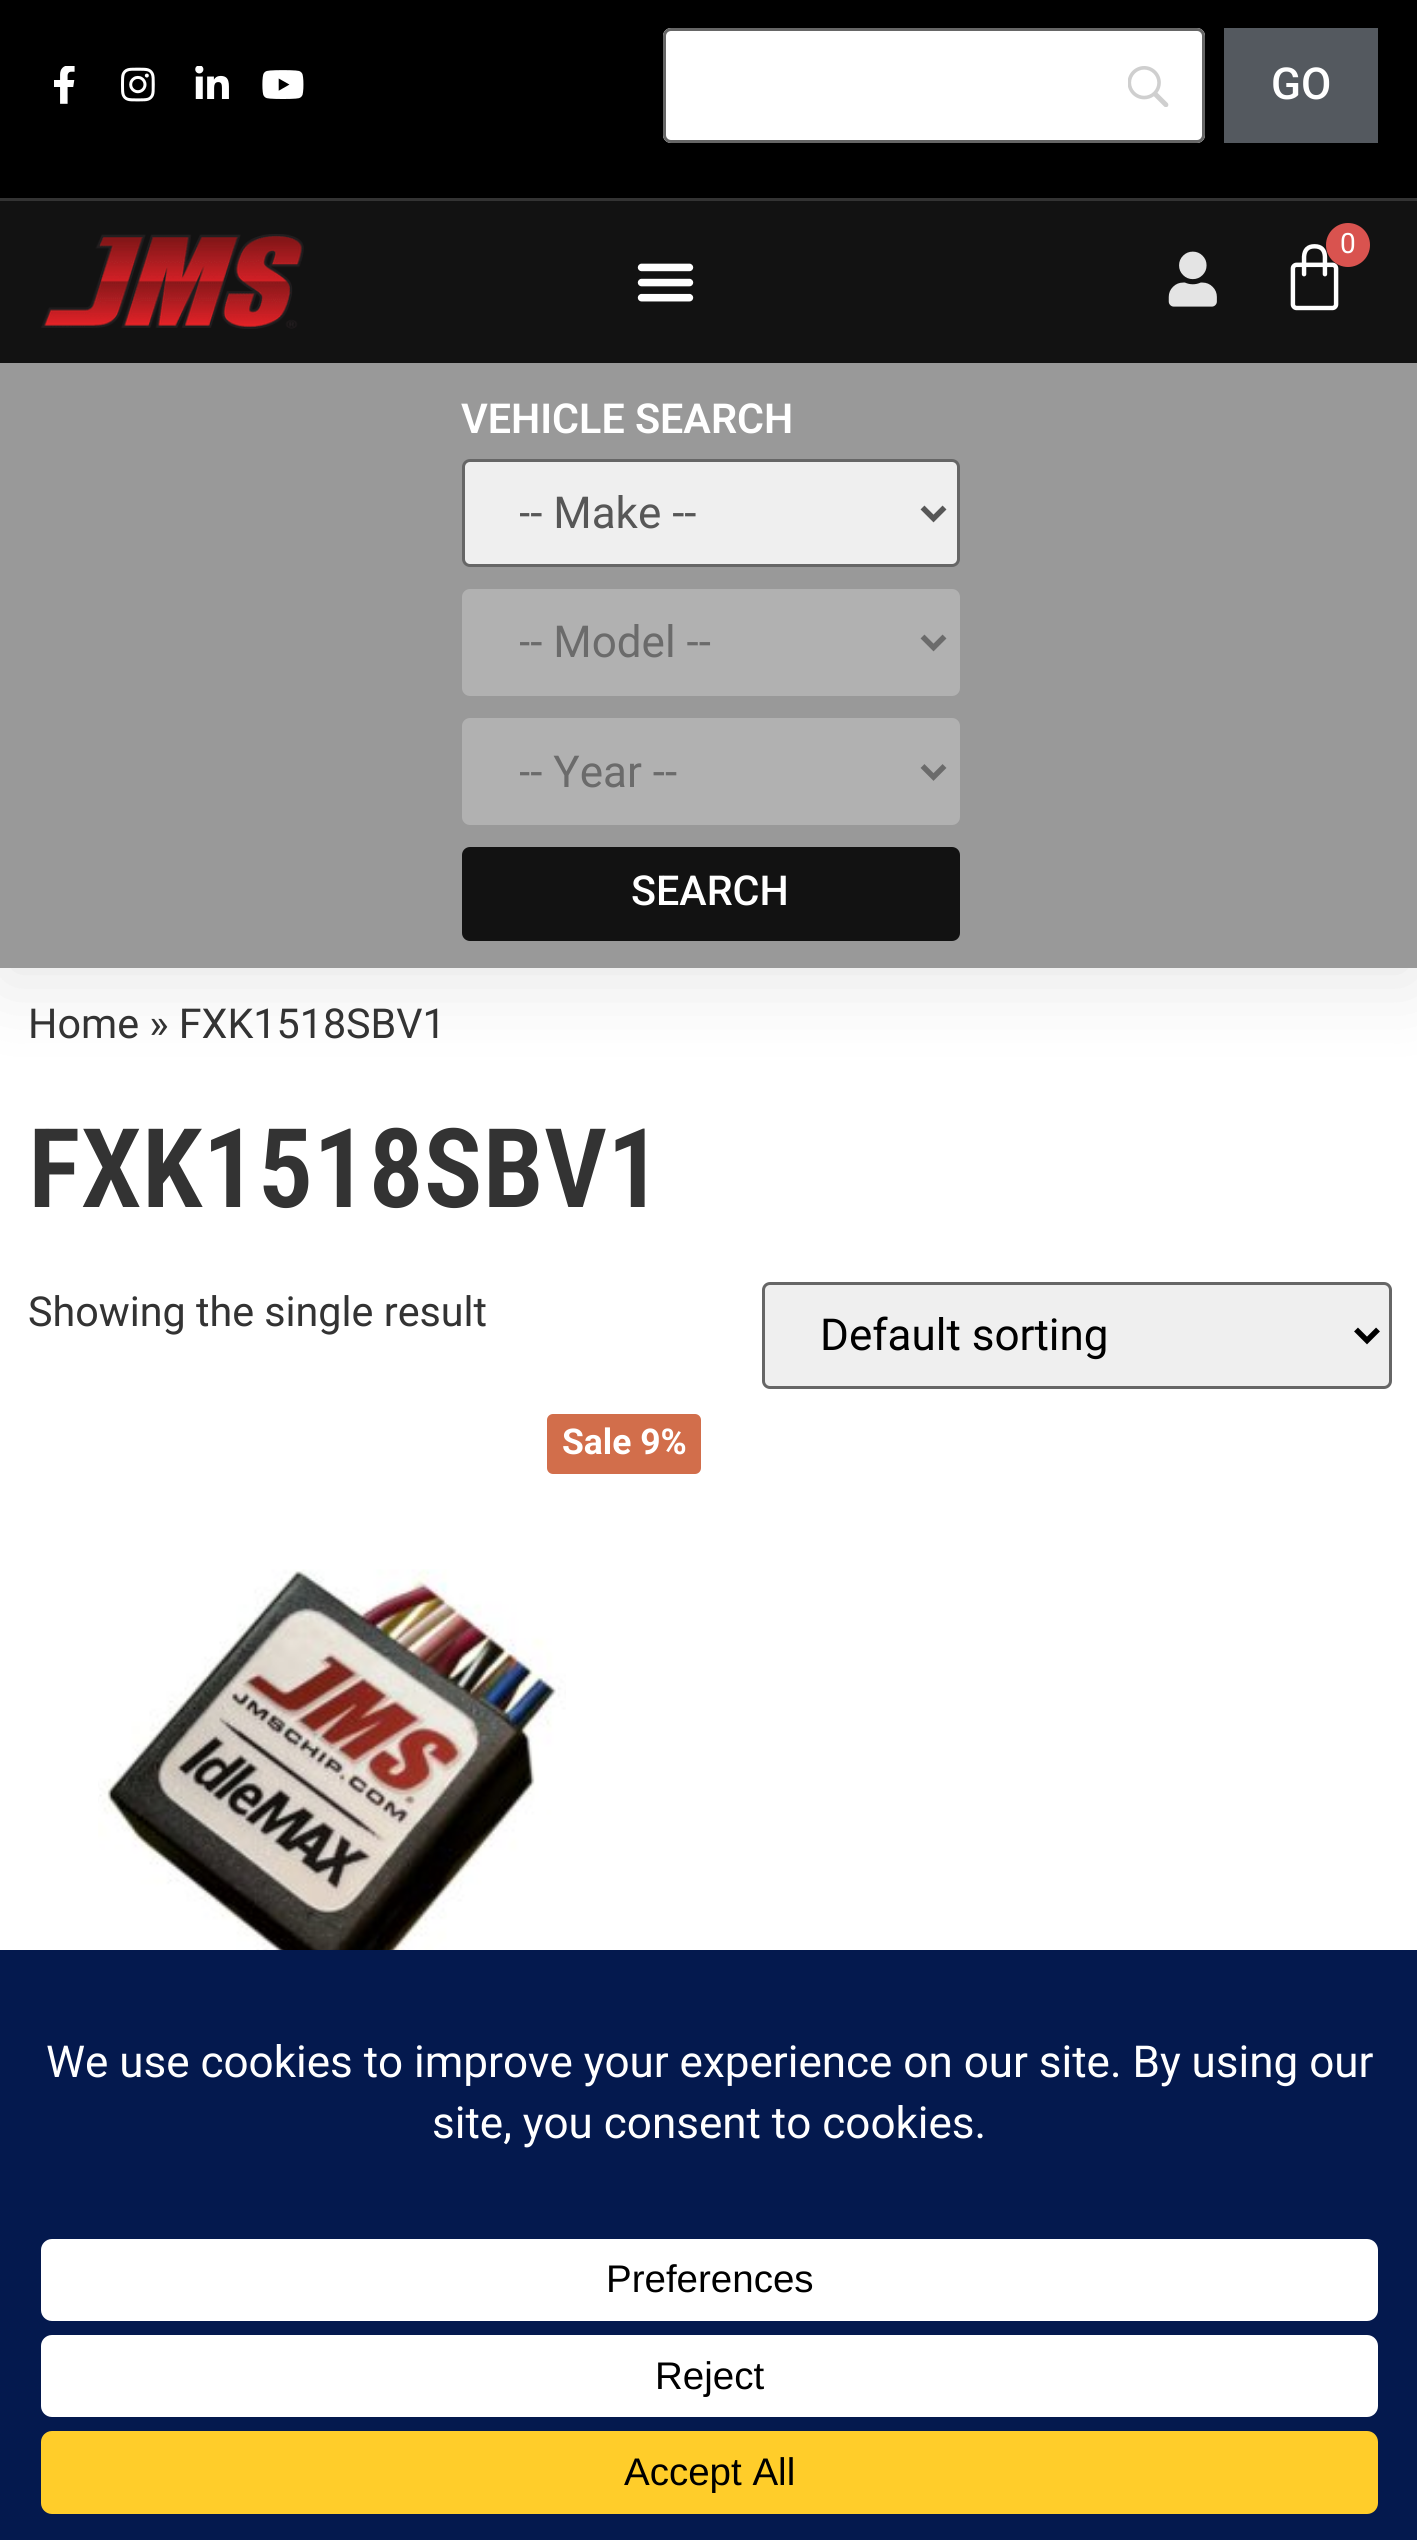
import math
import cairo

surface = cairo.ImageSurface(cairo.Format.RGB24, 1417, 2540)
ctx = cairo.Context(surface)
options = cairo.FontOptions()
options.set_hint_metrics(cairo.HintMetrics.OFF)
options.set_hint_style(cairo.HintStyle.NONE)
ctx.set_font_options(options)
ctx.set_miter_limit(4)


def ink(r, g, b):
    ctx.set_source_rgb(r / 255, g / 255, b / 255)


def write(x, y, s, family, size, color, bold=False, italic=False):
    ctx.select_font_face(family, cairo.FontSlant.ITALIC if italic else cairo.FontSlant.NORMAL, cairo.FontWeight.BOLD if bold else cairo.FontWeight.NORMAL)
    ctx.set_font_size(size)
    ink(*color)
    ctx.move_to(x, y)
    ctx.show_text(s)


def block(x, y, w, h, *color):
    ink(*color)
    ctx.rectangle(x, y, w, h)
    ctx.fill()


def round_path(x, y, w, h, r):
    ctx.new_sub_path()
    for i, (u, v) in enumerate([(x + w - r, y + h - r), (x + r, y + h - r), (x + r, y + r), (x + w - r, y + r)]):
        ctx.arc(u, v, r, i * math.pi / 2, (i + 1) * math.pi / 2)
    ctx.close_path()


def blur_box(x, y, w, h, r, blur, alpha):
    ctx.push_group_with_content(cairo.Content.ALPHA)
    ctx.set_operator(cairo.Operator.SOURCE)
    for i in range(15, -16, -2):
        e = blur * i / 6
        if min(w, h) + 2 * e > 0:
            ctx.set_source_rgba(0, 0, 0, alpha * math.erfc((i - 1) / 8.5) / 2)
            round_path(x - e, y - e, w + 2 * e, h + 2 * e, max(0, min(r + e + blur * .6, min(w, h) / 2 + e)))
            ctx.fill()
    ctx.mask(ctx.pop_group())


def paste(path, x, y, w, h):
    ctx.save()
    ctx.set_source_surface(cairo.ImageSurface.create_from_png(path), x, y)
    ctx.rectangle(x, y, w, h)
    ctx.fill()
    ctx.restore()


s1 = dict(family="Roboto Medium", size=44, color=(255, 255, 255))
s2 = dict(family="Roboto", size=28, color=(255, 255, 255))
s3 = dict(family="Roboto SemiBold", size=41.25, color=(255, 255, 255))
s4 = dict(family="Roboto", size=44, color=(87, 87, 87))
s5 = dict(family="Roboto", size=44, color=(107, 107, 107))
s6 = dict(family="Roboto Medium", size=41.25, color=(255, 255, 255))
s7 = dict(family="Roboto", size=41.25, color=(51, 51, 51))
s8 = dict(family="Roboto Condensed SemiBold", size=110, color=(51, 51, 51))
s9 = dict(family="Roboto", size=44, color=(0, 0, 0))
s10 = dict(family="Roboto", size=35.5, color=(255, 255, 255), bold=True)
s11 = dict(family="Roboto", size=44, color=(255, 255, 255))
s12 = dict(family="Liberation Sans", size=38.5, color=(0, 0, 0))

ink(255, 255, 255)
ctx.paint()
ink(0, 0, 0)
blur_box(0, 14, 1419, 968, 0, 41, 0.1)
block(0, 0, 1417, 198, 0, 0, 0)
paste("pic1.png", 54, 66, 21, 38)
paste("pic2.png", 121, 67, 34, 35)
paste("pic3.png", 195, 66, 34, 33)
paste("pic4.png", 262, 70, 42, 29)
ink(255, 255, 255)
round_path(663, 28, 542, 115, 8)
ctx.fill()
paste("pic5.png", 1128, 66, 41, 41)
round_path(664.5, 29.5, 539, 112, 6.5)
ink(102, 102, 102)
ctx.set_line_width(3)
ctx.stroke()
block(1224, 28, 154, 115, 84, 89, 95)
write(1271, 99, "GO", **s1)
block(0, 201, 1417, 162, 18, 18, 18)
block(0, 198, 1417, 3, 51, 51, 51)
paste("pic6.png", 41, 234, 263, 95)
paste("pic7.png", 637, 263, 57, 39)
paste("pic8.png", 1290, 244, 49, 67)
ink(217, 83, 79)
ctx.arc(1348, 245, 22, 0, 2 * math.pi)
ctx.fill()
write(1340, 253, "0", **s2)
paste("pic9.png", 1168, 251, 49, 56)
block(0, 363, 1417, 605, 153, 153, 153)
write(461, 433, "VEHICLE SEARCH", **s3)
ink(239, 239, 239)
round_path(463.5, 460.5, 495, 105, 6.5)
ctx.fill_preserve()
ink(102, 102, 102)
ctx.stroke()
ctx.new_path()
ctx.move_to(922.5, 507.5)
ctx.line_to(933.5, 518.5)
ctx.line_to(944.5, 507.5)
ink(87, 87, 87)
ctx.set_line_width(5.5)
ctx.stroke()
ctx.save()
ctx.rectangle(520, 484, 349, 58)
ctx.clip()
write(518, 528, "-- Make --", **s4)
ctx.restore()
ink(177, 177, 177)
round_path(463.5, 590.5, 495, 104, 6.5)
ctx.fill_preserve()
ctx.set_line_width(3)
ctx.stroke()
ctx.new_path()
ctx.move_to(922.5, 636.5)
ctx.line_to(933.5, 647.5)
ctx.line_to(944.5, 636.5)
ink(107, 107, 107)
ctx.set_line_width(5.5)
ctx.stroke()
ctx.save()
ctx.rectangle(520, 613, 349, 58)
ctx.clip()
write(518, 657, "-- Model --", **s5)
ctx.restore()
ink(177, 177, 177)
round_path(463.5, 719.5, 495, 104, 6.5)
ctx.fill_preserve()
ctx.set_line_width(3)
ctx.stroke()
ctx.new_path()
ctx.move_to(922.5, 766)
ctx.line_to(933.5, 777)
ctx.line_to(944.5, 766)
ink(107, 107, 107)
ctx.set_line_width(5.5)
ctx.stroke()
ctx.save()
ctx.rectangle(520, 743, 349, 57)
ctx.clip()
write(518, 787, "-- Year --", **s5)
ctx.restore()
ink(18, 18, 18)
round_path(462, 847, 498, 94, 8)
ctx.fill()
write(631, 905, "SEARCH", **s6)
write(28, 1038, "Home » FXK1518SBV1", **s7)
write(28, 1207, "FXK1518SBV1", **s8)
write(28, 1326, "Showing the single result", **s7)
ink(239, 239, 239)
round_path(763.5, 1283.5, 627, 104, 6.5)
ctx.fill_preserve()
ink(102, 102, 102)
ctx.set_line_width(3)
ctx.stroke()
ctx.new_path()
ctx.move_to(1356, 1329.5)
ctx.line_to(1367, 1340.5)
ctx.line_to(1378, 1329.5)
ink(0, 0, 0)
ctx.set_line_width(5.5)
ctx.stroke()
write(820, 1350, "Default sorting", **s9)
ink(210, 110, 75)
round_path(547, 1414, 154, 60, 6)
ctx.fill()
write(562, 1454, "Sale 9%", **s10)
paste("pic10.png", 98, 1569, 468, 381)
block(0, 1950, 1417, 590, 4, 25, 78)
write(46, 2077, "We use cookies to improve your experience on our site. By using our", **s11)
write(432, 2138, "site, you consent to cookies.", **s11)
round_path(41, 2239, 1337, 82, 11)
ctx.fill()
write(606, 2292, "Preferences", **s12)
ink(255, 255, 255)
round_path(41, 2335, 1337, 82, 11)
ctx.fill()
write(655, 2389, "Reject", **s12)
ink(255, 205, 42)
round_path(41, 2431, 1337, 83, 11)
ctx.fill()
write(624, 2485, "Accept All", **s12)
surface.write_to_png("screenshot.png")
